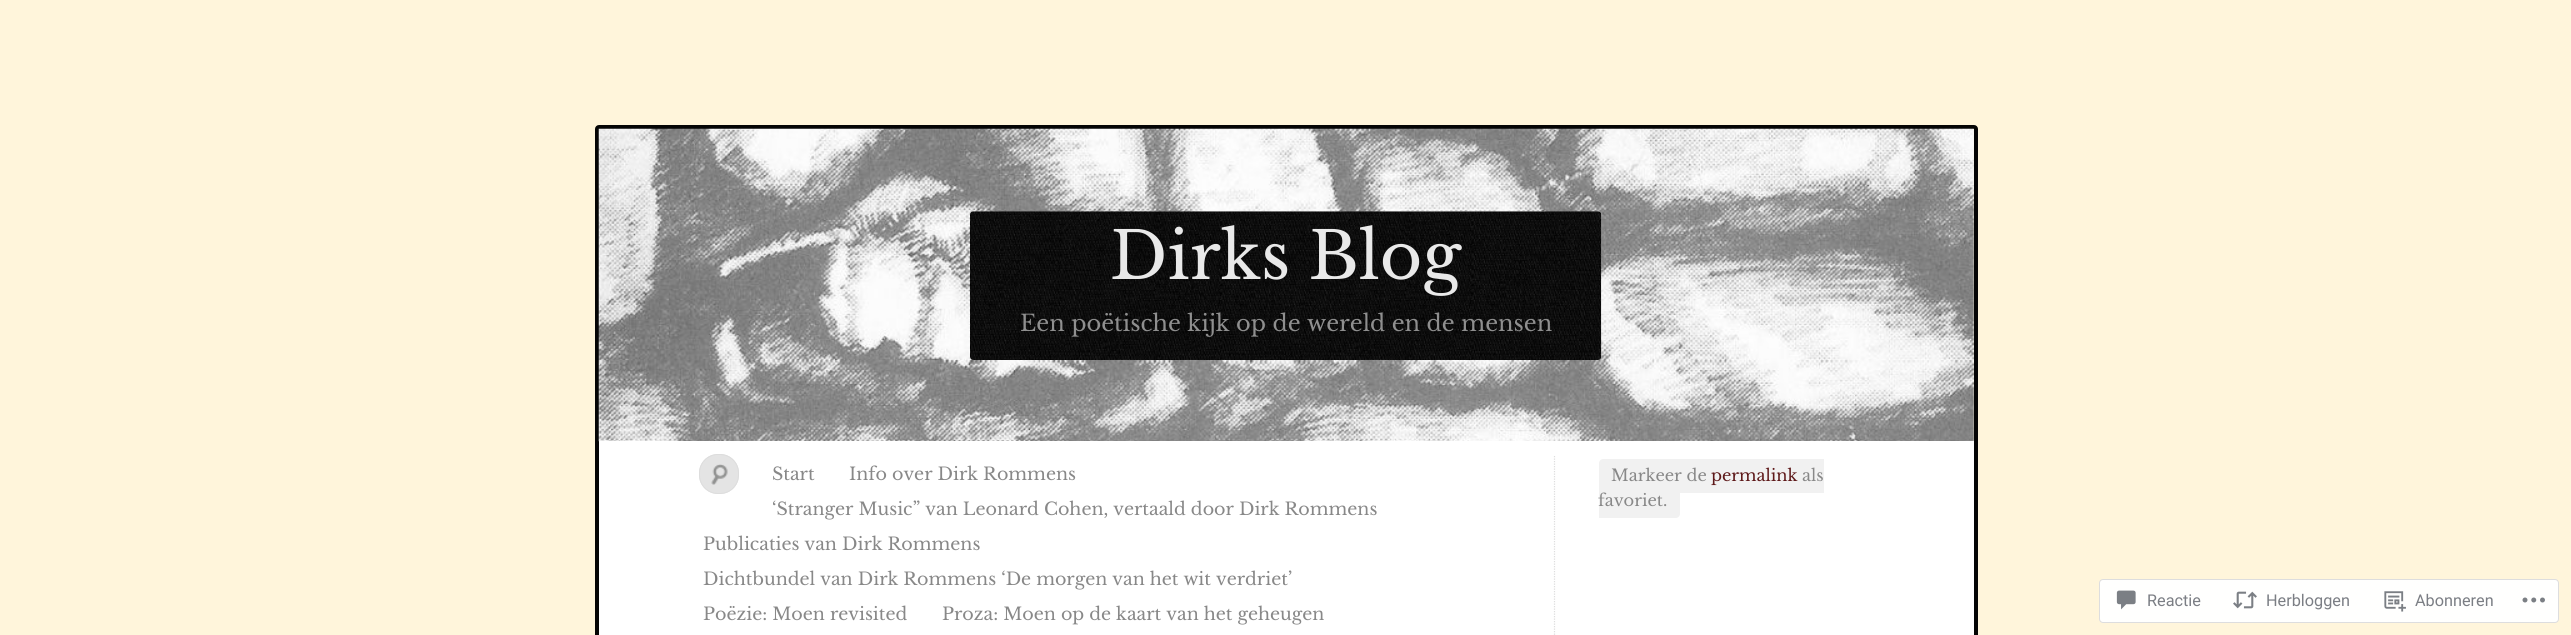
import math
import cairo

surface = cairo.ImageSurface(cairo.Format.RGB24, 2571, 635)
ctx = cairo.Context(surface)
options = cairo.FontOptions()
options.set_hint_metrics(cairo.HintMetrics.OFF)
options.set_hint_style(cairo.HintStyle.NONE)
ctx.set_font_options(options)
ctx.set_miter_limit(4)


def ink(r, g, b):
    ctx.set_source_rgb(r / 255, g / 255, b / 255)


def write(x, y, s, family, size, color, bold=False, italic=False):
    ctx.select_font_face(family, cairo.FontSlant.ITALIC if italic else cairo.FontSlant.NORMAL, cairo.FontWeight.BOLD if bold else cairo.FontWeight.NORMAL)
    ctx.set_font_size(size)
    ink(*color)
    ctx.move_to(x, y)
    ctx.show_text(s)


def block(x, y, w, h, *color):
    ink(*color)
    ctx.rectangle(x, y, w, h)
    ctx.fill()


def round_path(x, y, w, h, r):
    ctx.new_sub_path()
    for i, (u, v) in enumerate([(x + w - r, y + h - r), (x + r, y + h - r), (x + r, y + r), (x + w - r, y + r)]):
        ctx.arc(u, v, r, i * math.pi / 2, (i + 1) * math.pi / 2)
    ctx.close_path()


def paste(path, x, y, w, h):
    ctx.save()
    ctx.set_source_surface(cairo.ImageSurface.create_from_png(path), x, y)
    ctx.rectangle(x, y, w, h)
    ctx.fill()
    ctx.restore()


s1 = dict(family="Libre Baskerville", size=65, color=(233, 233, 233))
s2 = dict(family="Libre Baskerville", size=22.5, color=(143, 143, 143))
s3 = dict(family="Libre Baskerville", size=17.5, color=(136, 136, 136))
s4 = dict(family="Libre Baskerville", size=16.25, color=(136, 136, 136))
s5 = dict(family="Libre Baskerville", size=16.25, color=(94, 25, 26))
s6 = dict(family="Roboto", size=16.25, color=(123, 126, 132))

ink(255, 245, 219)
ctx.paint()
round_path(597, 127, 1379, 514, 2)
ink(5, 5, 5)
ctx.set_line_width(4)
ctx.stroke()
paste("pic1.png", 598, 128, 1376, 314)
paste("pic2.png", 970, 211, 632, 149)
write(1110, 279, "Dirks Blog", **s1)
write(1020, 331, "Een poëtische kijk op de wereld en de mensen", **s2)
block(599, 441, 1375, 194, 255, 255, 255)
ink(228, 228, 228)
round_path(699, 454, 40, 40, 19)
ctx.fill()
paste("pic3.png", 711, 464, 17, 21)
round_path(699.5, 454.5, 39, 39, 18.5)
ink(221, 221, 221)
ctx.set_line_width(1)
ctx.stroke()
ctx.new_path()
ctx.move_to(1554.5, 456)
ctx.line_to(1554.5, 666)
ctx.set_line_width(1.2)
ctx.set_dash([1.25, 1.25])
ctx.stroke()
write(772, 480, "Start", **s3)
write(849, 480, "Info over Dirk Rommens", **s3)
write(772, 515, "‘Stranger Music” van Leonard Cohen, vertaald door Dirk Rommens", **s3)
write(703, 550, "Publicaties van Dirk Rommens", **s3)
write(703, 585, "Dichtbundel van Dirk Rommens ‘De morgen van het wit verdriet’", **s3)
write(703, 620, "Poëzie: Moen revisited", **s3)
write(942, 620, "Proza: Moen op de kaart van het geheugen", **s3)
ink(241, 241, 241)
ctx.new_path()
ctx.move_to(1603, 459)
ctx.line_to(1711, 459)
ctx.line_to(1711, 493)
ctx.line_to(1603, 493)
ctx.curve_to(1601, 493, 1599, 491, 1599, 489)
ctx.line_to(1599, 463)
ctx.curve_to(1599, 461, 1601, 459, 1603, 459)
ctx.close_path()
ctx.fill()
write(1611, 481, "Markeer de", **s4)
block(1711, 459, 113, 34, 241, 241, 241)
write(1711, 481, "permalink", **s5)
write(1802, 481, "als", **s4)
ink(241, 241, 241)
ctx.new_path()
ctx.move_to(1599, 484)
ctx.line_to(1676, 484)
ctx.curve_to(1678, 484, 1680, 486, 1680, 488)
ctx.line_to(1680, 514)
ctx.curve_to(1680, 516, 1678, 518, 1676, 518)
ctx.line_to(1599, 518)
ctx.close_path()
ctx.fill()
write(1598, 506, "favoriet.", **s4)
ink(255, 255, 254)
round_path(2099.5, 579.5, 459, 43, 3.5)
ctx.fill_preserve()
ink(221, 221, 222)
ctx.set_line_width(1)
ctx.set_dash([])
ctx.stroke()
paste("pic4.png", 2116, 590, 20, 20)
write(2147, 606, "Reactie", **s6)
paste("pic5.png", 2233, 591, 24, 18)
write(2266, 606, "Herbloggen", **s6)
paste("pic6.png", 2384, 591, 22, 21)
write(2415, 606, "Abonneren", **s6)
paste("pic7.png", 2522, 597, 23, 6)
surface.write_to_png("screenshot.png")
